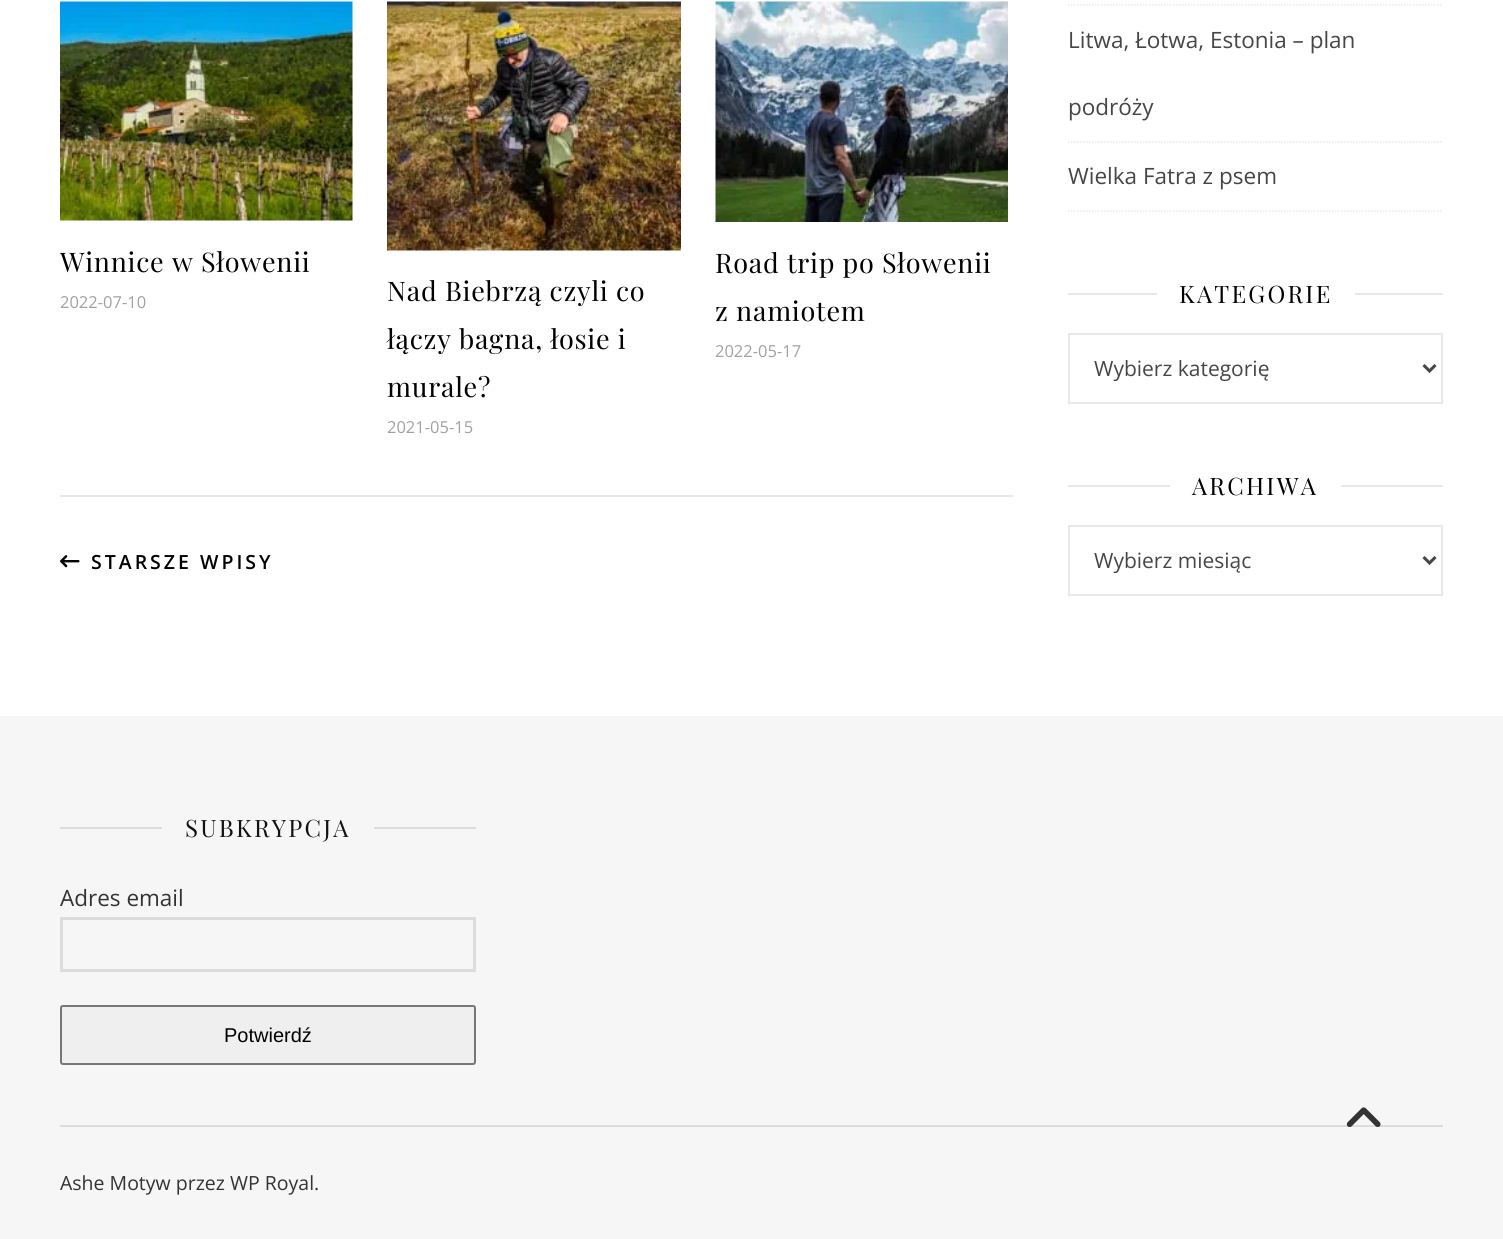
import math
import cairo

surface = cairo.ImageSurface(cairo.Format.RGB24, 1503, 1239)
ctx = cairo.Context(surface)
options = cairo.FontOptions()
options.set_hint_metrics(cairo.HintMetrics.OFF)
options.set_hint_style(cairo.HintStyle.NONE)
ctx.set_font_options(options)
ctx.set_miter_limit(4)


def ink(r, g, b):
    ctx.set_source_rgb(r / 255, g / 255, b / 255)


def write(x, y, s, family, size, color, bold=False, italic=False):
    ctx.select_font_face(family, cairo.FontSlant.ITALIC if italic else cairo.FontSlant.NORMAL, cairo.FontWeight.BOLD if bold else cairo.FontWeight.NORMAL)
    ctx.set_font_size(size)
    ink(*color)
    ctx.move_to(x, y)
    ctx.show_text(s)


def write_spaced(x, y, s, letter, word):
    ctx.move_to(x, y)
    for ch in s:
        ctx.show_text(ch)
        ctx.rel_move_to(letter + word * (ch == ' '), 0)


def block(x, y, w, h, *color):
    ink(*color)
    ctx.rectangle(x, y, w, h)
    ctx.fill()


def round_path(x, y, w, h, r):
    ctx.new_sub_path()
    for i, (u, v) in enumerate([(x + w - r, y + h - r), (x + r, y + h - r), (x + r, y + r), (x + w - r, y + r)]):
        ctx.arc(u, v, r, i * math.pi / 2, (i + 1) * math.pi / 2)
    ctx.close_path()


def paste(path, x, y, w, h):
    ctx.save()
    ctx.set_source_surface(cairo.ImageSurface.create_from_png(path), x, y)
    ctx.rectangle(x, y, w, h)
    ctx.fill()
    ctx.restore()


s1 = dict(family="Open Sans", size=16.5, color=(161, 161, 161))
s2 = dict(family="Open Sans", size=22.5, color=(70, 70, 70))
s3 = dict(family="Open Sans", size=21, color=(70, 70, 70))
s4 = dict(family="Open Sans", size=22.5, color=(51, 51, 51))
s5 = dict(family="Liberation Sans", size=20, color=(0, 0, 0))
s6 = dict(family="Open Sans", size=19.5, color=(51, 51, 51))

ink(255, 255, 255)
ctx.paint()
block(60, 495, 953, 2, 232, 232, 232)
paste("pic1.png", 60, 1, 293, 220)
ctx.select_font_face("Playfair Display")
ctx.set_font_size(27)
ink(0, 0, 0)
write_spaced(60, 272, "Winnice w Słowenii", 0.75, 0)
write(60, 308, "2022-07-10", **s1)
paste("pic2.png", 387, 1, 294, 250)
ctx.select_font_face("Playfair Display")
ctx.set_font_size(27)
ink(0, 0, 0)
write_spaced(387, 301, "Nad Biebrzą czyli co", 0.75, 0)
write_spaced(387, 349, "łączy bagna, łosie i", 0.75, 0)
write_spaced(387, 397, "murale?", 0.75, 0)
write(387, 433, "2021-05-15", **s1)
paste("pic3.png", 715, 1, 293, 221)
ctx.select_font_face("Playfair Display")
ctx.set_font_size(27)
ink(0, 0, 0)
write_spaced(715, 273, "Road trip po Słowenii", 0.75, 0)
write_spaced(715, 321, "z namiotem", 0.75, 0)
write(715, 357, "2022-05-17", **s1)
paste("pic4.png", 60, 555, 20, 13)
ctx.select_font_face("Open Sans SemiBold")
ctx.set_font_size(19.5)
ink(0, 0, 0)
write_spaced(91, 569, "STARSZE WPISY", 3, 0)
ctx.new_path()
ctx.move_to(1068, 5)
ctx.line_to(1443, 5)
ink(232, 232, 232)
ctx.set_line_width(1.5)
ctx.set_dash([1.5, 1.5])
ctx.stroke()
ctx.new_path()
ctx.move_to(1068, 142)
ctx.line_to(1443, 142)
ctx.stroke()
write(1068, 48, "Litwa, Łotwa, Estonia – plan", **s2)
write(1068, 115, "podróży", **s2)
ctx.new_path()
ctx.move_to(1068, 211)
ctx.line_to(1443, 211)
ink(232, 232, 232)
ctx.stroke()
write(1068, 184, "Wielka Fatra z psem", **s2)
block(1068, 293, 89, 2, 232, 232, 232)
ctx.select_font_face("Playfair Display")
ctx.set_font_size(24)
ink(0, 0, 0)
write_spaced(1179, 303, "KATEGORIE", 2.25, 0)
block(1355, 293, 88, 2, 232, 232, 232)
ctx.rectangle(1069, 334, 373, 69)
ctx.set_line_width(2)
ctx.set_dash([])
ctx.stroke()
ctx.new_path()
ctx.move_to(1423.5, 365)
ctx.line_to(1429.5, 371)
ctx.line_to(1435.5, 365)
ink(70, 70, 70)
ctx.set_line_width(3)
ctx.stroke()
write(1094, 376, "Wybierz kategorię", **s3)
block(1068, 485, 102, 2, 232, 232, 232)
ctx.select_font_face("Playfair Display")
ctx.set_font_size(24)
ink(0, 0, 0)
write_spaced(1192, 495, "ARCHIWA", 2.25, 0)
block(1341, 485, 102, 2, 232, 232, 232)
ctx.rectangle(1069, 526, 373, 69)
ctx.set_line_width(2)
ctx.stroke()
ctx.new_path()
ctx.move_to(1423.5, 557)
ctx.line_to(1429.5, 563)
ctx.line_to(1435.5, 557)
ink(70, 70, 70)
ctx.set_line_width(3)
ctx.stroke()
write(1094, 568, "Wybierz miesiąc", **s3)
block(0, 716, 1503, 523, 246, 246, 246)
block(60, 1125, 1383, 2, 224, 219, 219)
block(60, 827, 102, 2, 224, 219, 219)
ctx.select_font_face("Playfair Display")
ctx.set_font_size(24)
ink(17, 17, 17)
write_spaced(185, 837, "SUBKRYPCJA", 2.25, 0)
block(374, 827, 102, 2, 224, 219, 219)
write(60, 906, "Adres email", **s4)
ctx.rectangle(61.5, 918.5, 413, 52)
ink(224, 219, 219)
ctx.stroke()
ink(239, 239, 239)
round_path(61, 1006, 414, 58, 2)
ctx.fill_preserve()
ink(118, 118, 118)
ctx.set_line_width(2)
ctx.stroke()
write(224, 1042, "Potwierdź", **s5)
write(60, 1190, "Ashe Motyw przez WP Royal.", **s6)
paste("pic5.png", 1346, 1107, 35, 20)
surface.write_to_png("screenshot.png")
